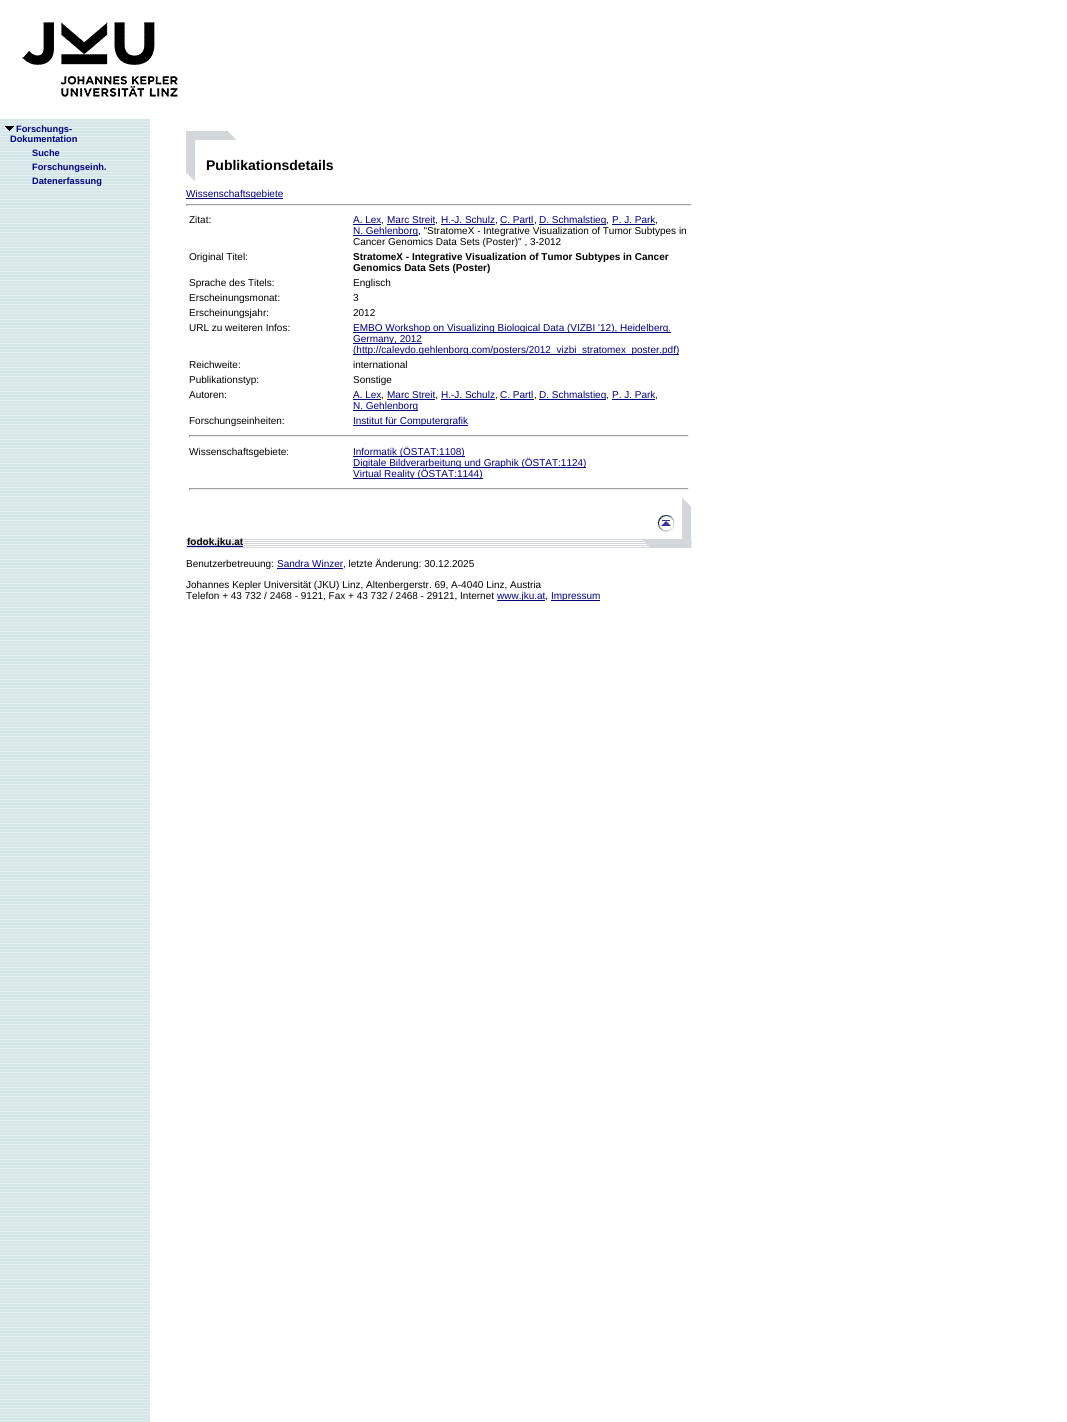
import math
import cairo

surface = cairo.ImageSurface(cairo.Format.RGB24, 1067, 1422)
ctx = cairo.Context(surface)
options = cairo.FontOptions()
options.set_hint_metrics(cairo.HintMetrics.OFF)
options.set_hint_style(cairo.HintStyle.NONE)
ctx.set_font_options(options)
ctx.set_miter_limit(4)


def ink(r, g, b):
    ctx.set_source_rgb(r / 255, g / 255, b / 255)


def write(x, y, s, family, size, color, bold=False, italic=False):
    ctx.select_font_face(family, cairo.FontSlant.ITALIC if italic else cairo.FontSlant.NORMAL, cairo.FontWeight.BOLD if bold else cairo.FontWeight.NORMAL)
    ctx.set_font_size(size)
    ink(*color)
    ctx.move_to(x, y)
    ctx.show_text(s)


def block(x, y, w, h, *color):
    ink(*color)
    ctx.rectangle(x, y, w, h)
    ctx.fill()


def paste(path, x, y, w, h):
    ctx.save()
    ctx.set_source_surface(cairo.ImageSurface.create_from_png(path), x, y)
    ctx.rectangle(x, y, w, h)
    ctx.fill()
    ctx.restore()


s1 = dict(family="Liberation Sans", size=9.25, color=(0, 0, 128), bold=True)
s2 = dict(family="Liberation Sans", size=14, color=(0, 0, 0), bold=True)
s3 = dict(family="Liberation Sans", size=10, color=(0, 0, 128))
s4 = dict(family="Liberation Sans", size=10, color=(0, 0, 0))
s5 = dict(family="Liberation Sans", size=10, color=(0, 0, 0), bold=True)

ink(255, 255, 255)
ctx.paint()
paste("pic1.png", 22, 22, 156, 75)
paste("pic2.png", 0, 119, 150, 1303)
paste("pic3.png", 5, 126, 9, 5)
write(16, 132, "Forschungs-", **s1)
write(10, 142, "Dokumentation", **s1)
write(32, 156, "Suche", **s1)
write(32, 170, "Forschungseinh.", **s1)
write(32, 184, "Datenerfassung", **s1)
paste("pic4.png", 186, 131, 50, 50)
write(206, 170, "Publikationsdetails", **s2)
block(186, 198, 97, 1, 0, 0, 128)
write(186, 197, "Wissenschaftsgebiete", **s3)
block(186, 204, 506, 1, 159, 159, 159)
block(691, 204, 1, 2, 238, 238, 238)
block(186, 205, 506, 1, 238, 238, 238)
block(186, 204, 1, 2, 159, 159, 159)
write(189, 223, "Zitat:", **s4)
write(353, 223, "A. Lex", **s3)
block(353, 224, 28, 1, 0, 0, 128)
write(381, 223, ",", **s4)
write(387, 223, "Marc Streit", **s3)
block(387, 224, 48, 1, 0, 0, 128)
write(435, 223, ",", **s4)
write(441, 223, "H.-J. Schulz", **s3)
block(441, 224, 54, 1, 0, 0, 128)
write(495, 223, ",", **s4)
write(500, 223, "C. Partl", **s3)
block(500, 224, 34, 1, 0, 0, 128)
write(534, 223, ",", **s4)
block(539, 224, 67, 1, 0, 0, 128)
write(539, 223, "D. Schmalstieg", **s3)
write(606, 223, ",", **s4)
write(612, 223, "P. J. Park", **s3)
block(612, 224, 43, 1, 0, 0, 128)
write(655, 223, ",", **s4)
block(353, 235, 65, 1, 0, 0, 128)
write(353, 234, "N. Gehlenborg", **s3)
write(418, 234, ", \"StratomeX - Integrative Visualization of Tumor Subtypes in", **s4)
write(353, 245, "Cancer Genomics Data Sets (Poster)\" , 3-2012", **s4)
write(189, 260, "Original Titel:", **s4)
write(353, 260, "StratomeX - Integrative Visualization of Tumor Subtypes in Cancer", **s5)
write(353, 271, "Genomics Data Sets (Poster)", **s5)
write(189, 286, "Sprache des Titels:", **s4)
write(353, 286, "Englisch", **s4)
write(189, 301, "Erscheinungsmonat:", **s4)
write(353, 301, "3", **s4)
write(189, 316, "Erscheinungsjahr:", **s4)
write(353, 316, "2012", **s4)
write(189, 331, "URL zu weiteren Infos:", **s4)
block(353, 332, 318, 1, 0, 0, 128)
write(353, 331, "EMBO Workshop on Visualizing Biological Data (VIZBI '12), Heidelberg,", **s3)
block(353, 343, 69, 1, 0, 0, 128)
write(353, 342, "Germany, 2012", **s3)
block(353, 354, 326, 1, 0, 0, 128)
write(353, 353, "(http://caleydo.gehlenborg.com/posters/2012_vizbi_stratomex_poster.pdf)", **s3)
write(189, 368, "Reichweite:", **s4)
write(353, 368, "international", **s4)
write(189, 383, "Publikationstyp:", **s4)
write(353, 383, "Sonstige", **s4)
write(189, 398, "Autoren:", **s4)
write(353, 398, "A. Lex", **s3)
block(353, 399, 28, 1, 0, 0, 128)
write(381, 398, ",", **s4)
write(387, 398, "Marc Streit", **s3)
block(387, 399, 48, 1, 0, 0, 128)
write(435, 398, ",", **s4)
write(441, 398, "H.-J. Schulz", **s3)
block(441, 399, 54, 1, 0, 0, 128)
write(495, 398, ",", **s4)
write(500, 398, "C. Partl", **s3)
block(500, 399, 34, 1, 0, 0, 128)
write(534, 398, ",", **s4)
block(539, 399, 67, 1, 0, 0, 128)
write(539, 398, "D. Schmalstieg", **s3)
write(606, 398, ",", **s4)
write(612, 398, "P. J. Park", **s3)
block(612, 399, 43, 1, 0, 0, 128)
write(655, 398, ",", **s4)
block(353, 410, 65, 1, 0, 0, 128)
write(353, 409, "N. Gehlenborg", **s3)
write(189, 424, "Forschungseinheiten:", **s4)
block(353, 425, 115, 1, 0, 0, 128)
write(353, 424, "Institut für Computergrafik", **s3)
block(189, 435, 500, 1, 159, 159, 159)
block(688, 435, 1, 2, 238, 238, 238)
block(189, 436, 500, 1, 238, 238, 238)
block(189, 435, 1, 2, 159, 159, 159)
write(189, 455, "Wissenschaftsgebiete:", **s4)
block(353, 456, 112, 1, 0, 0, 128)
write(353, 455, "Informatik (ÖSTAT:1108)", **s3)
block(353, 467, 233, 1, 0, 0, 128)
write(353, 466, "Digitale Bildverarbeitung und Graphik (ÖSTAT:1124)", **s3)
block(353, 478, 130, 1, 0, 0, 128)
write(353, 477, "Virtual Reality (ÖSTAT:1144)", **s3)
block(189, 488, 500, 1, 159, 159, 159)
block(688, 488, 1, 2, 238, 238, 238)
block(189, 489, 500, 1, 238, 238, 238)
block(189, 488, 1, 2, 159, 159, 159)
paste("pic5.png", 186, 539, 506, 9)
block(187, 546, 56, 1, 0, 0, 128)
write(187, 545, "fodok.jku.at", **s5)
paste("pic6.png", 643, 498, 48, 49)
paste("pic7.png", 658, 515, 17, 17)
write(186, 567, "Benutzerbetreuung:", **s4)
write(277, 567, "Sandra Winzer", **s3)
block(277, 568, 66, 1, 0, 0, 128)
write(343, 567, ", letzte Änderung: 30.12.2025", **s4)
write(186, 588, "Johannes Kepler Universität (JKU) Linz, Altenbergerstr. 69, A-4040 Linz, Austria", **s4)
write(186, 599, "Telefon + 43 732 / 2468 - 9121, Fax + 43 732 / 2468 - 29121, Internet", **s4)
block(497, 600, 48, 1, 0, 0, 128)
write(497, 599, "www.jku.at", **s3)
write(545, 599, ",", **s4)
block(551, 600, 49, 1, 0, 0, 128)
write(551, 599, "Impressum", **s3)
surface.write_to_png("screenshot.png")
